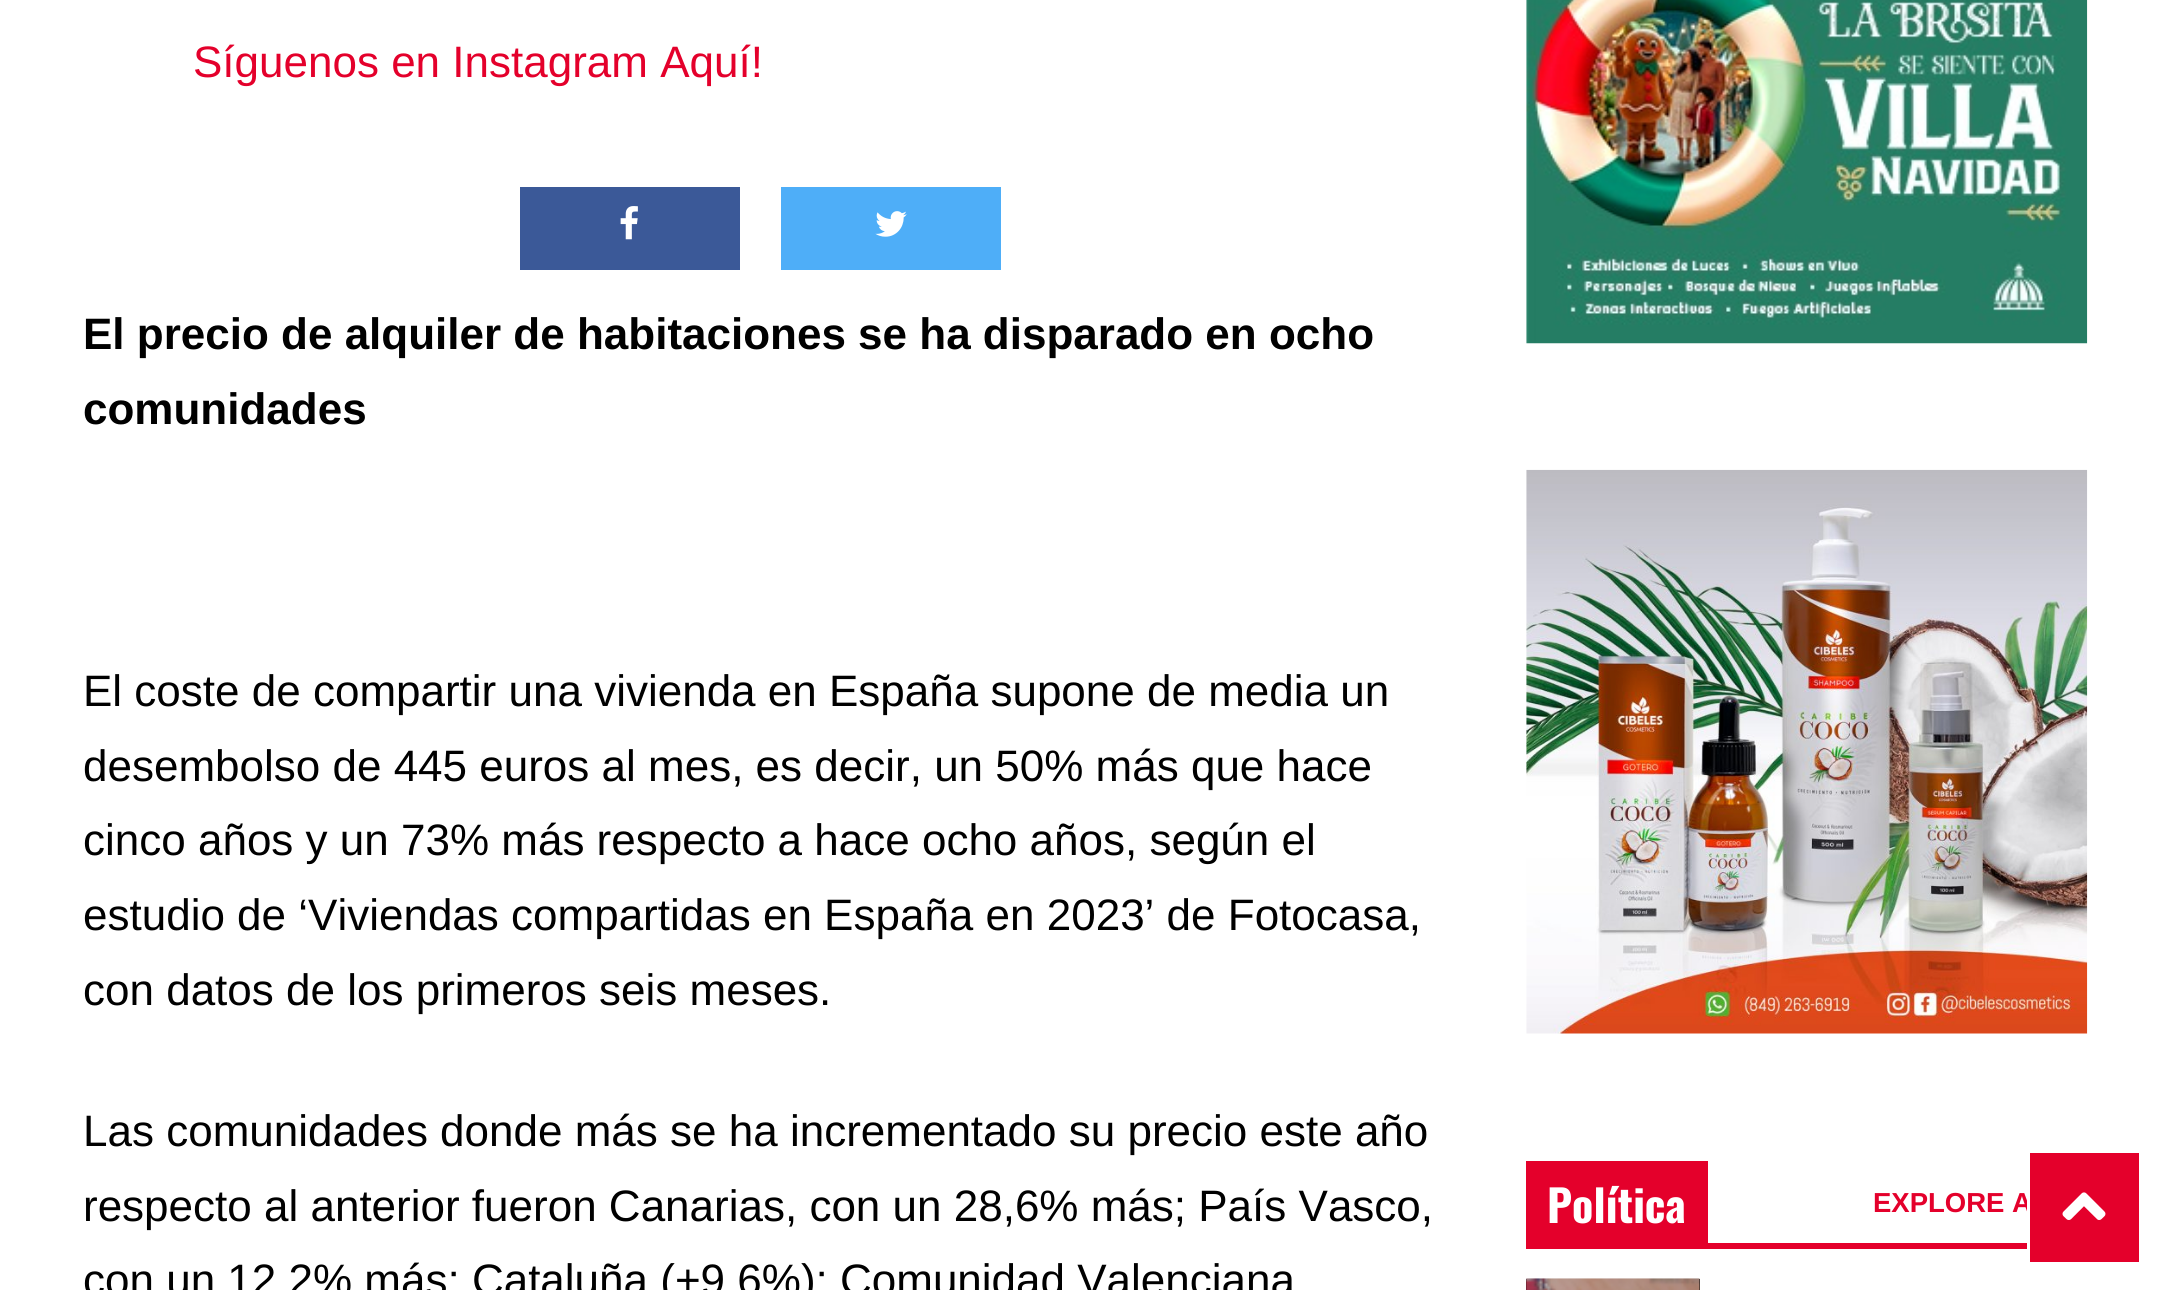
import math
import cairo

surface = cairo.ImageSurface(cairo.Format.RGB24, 2169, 1290)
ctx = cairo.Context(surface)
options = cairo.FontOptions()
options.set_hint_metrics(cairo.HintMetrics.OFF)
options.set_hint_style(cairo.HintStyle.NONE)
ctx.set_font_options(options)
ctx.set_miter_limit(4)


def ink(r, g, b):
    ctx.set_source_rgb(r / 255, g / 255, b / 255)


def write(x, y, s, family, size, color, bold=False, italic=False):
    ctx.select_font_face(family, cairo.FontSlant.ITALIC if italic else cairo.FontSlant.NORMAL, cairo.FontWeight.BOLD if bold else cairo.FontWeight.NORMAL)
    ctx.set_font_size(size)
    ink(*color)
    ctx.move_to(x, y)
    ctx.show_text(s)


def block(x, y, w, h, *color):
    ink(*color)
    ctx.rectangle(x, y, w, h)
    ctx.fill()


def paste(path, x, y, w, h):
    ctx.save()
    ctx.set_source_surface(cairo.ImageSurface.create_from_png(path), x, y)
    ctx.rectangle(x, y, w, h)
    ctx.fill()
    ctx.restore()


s1 = dict(family="Liberation Sans", size=44, color=(228, 0, 43))
s2 = dict(family="Liberation Sans", size=44, color=(0, 0, 0), bold=True)
s3 = dict(family="Liberation Sans", size=44, color=(0, 0, 0))
s4 = dict(family="Oswald", size=44, color=(255, 255, 255), bold=True)
s5 = dict(family="Liberation Sans", size=27.5, color=(228, 0, 43), bold=True)

ink(255, 255, 255)
ctx.paint()
write(193, 77, "Síguenos en Instagram Aquí!", **s1)
block(520, 187, 220, 83, 59, 89, 152)
paste("pic1.png", 620, 206, 18, 34)
block(781, 187, 220, 83, 78, 174, 248)
paste("pic2.png", 875, 211, 32, 26)
write(83, 349, "El precio de alquiler de habitaciones se ha disparado en ocho", **s2)
write(83, 424, "comunidades", **s2)
write(83, 706, "El coste de compartir una vivienda en España supone de media un", **s3)
write(83, 781, "desembolso de 445 euros al mes, es decir, un 50% más que hace", **s3)
write(83, 855, "cinco años y un 73% más respecto a hace ocho años, según el", **s3)
write(83, 930, "estudio de ‘Viviendas compartidas en España en 2023’ de Fotocasa,", **s3)
write(83, 1005, "con datos de los primeros seis meses.", **s3)
write(83, 1146, "Las comunidades donde más se ha incrementado su precio este año", **s3)
write(83, 1221, "respecto al anterior fueron Canarias, con un 28,6% más; País Vasco,", **s3)
write(83, 1295, "con un 12,2% más; Cataluña (+9,6%); Comunidad Valenciana", **s3)
paste("pic3.png", 1526, 0, 562, 344)
paste("pic4.png", 1526, 469, 562, 565)
block(1708, 1243, 319, 6, 228, 0, 43)
block(1526, 1161, 182, 88, 228, 0, 43)
write(1547, 1223, "Política", **s4)
write(1873, 1212, "EXPLORE A", **s5)
block(1526, 1279, 174, 11, 0, 0, 0)
paste("pic5.png", 1526, 1278, 174, 12)
ink(228, 0, 43)
ctx.rectangle(2028.5, 1151.5, 112, 112)
ctx.fill_preserve()
ink(255, 255, 255)
ctx.set_line_width(3)
ctx.stroke()
paste("pic6.png", 2062, 1192, 44, 28)
surface.write_to_png("screenshot.png")
